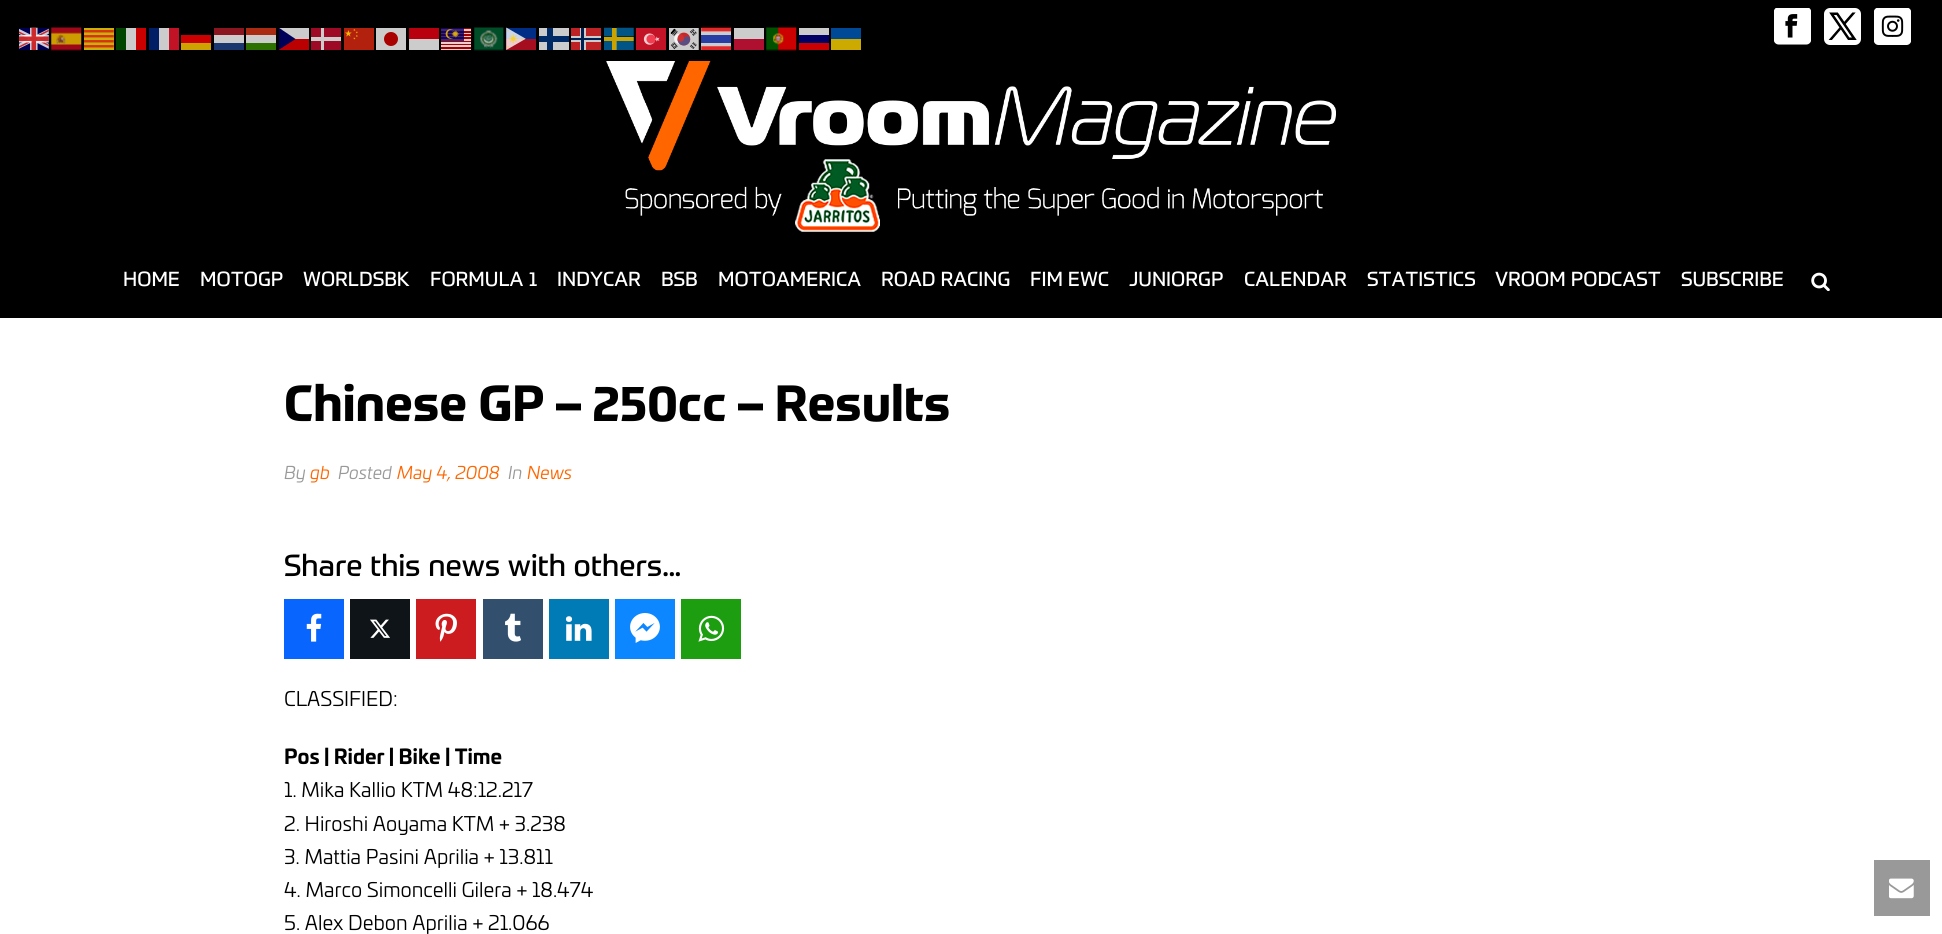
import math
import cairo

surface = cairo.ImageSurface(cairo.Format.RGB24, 1942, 934)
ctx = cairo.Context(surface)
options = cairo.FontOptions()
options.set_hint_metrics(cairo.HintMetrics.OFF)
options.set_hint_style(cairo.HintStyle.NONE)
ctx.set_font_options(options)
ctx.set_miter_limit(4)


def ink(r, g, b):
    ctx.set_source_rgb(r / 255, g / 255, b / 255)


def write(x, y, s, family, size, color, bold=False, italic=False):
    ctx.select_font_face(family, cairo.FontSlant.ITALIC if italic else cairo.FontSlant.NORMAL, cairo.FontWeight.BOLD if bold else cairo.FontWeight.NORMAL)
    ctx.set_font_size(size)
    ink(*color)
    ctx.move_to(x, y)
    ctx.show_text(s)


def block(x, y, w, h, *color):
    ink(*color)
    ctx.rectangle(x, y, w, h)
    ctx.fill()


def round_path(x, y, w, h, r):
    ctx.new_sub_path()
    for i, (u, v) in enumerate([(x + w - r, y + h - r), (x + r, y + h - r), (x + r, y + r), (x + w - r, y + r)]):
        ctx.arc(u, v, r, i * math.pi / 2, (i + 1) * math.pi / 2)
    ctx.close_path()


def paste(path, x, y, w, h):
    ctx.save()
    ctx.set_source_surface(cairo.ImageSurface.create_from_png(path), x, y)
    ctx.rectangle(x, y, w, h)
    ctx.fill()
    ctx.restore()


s1 = dict(family="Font", size=20, color=(255, 255, 255))
s2 = dict(family="Font", size=50, color=(0, 0, 0), bold=True)
s3 = dict(family="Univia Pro", size=17.5, color=(153, 153, 153), italic=True)
s4 = dict(family="Univia Pro", size=17.5, color=(255, 102, 0), italic=True)
s5 = dict(family="Font", size=30, color=(0, 0, 0))
s6 = dict(family="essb", size=30, color=(255, 255, 255))
s7 = dict(family="Univia Pro", size=20, color=(0, 0, 0))
s8 = dict(family="Univia Pro", size=20, color=(0, 0, 0), bold=True)

ink(255, 255, 255)
ctx.paint()
block(0, 0, 1942, 318, 0, 0, 0)
paste("pic1.png", 19, 27, 30, 23)
paste("pic2.png", 51, 27, 31, 24)
paste("pic3.png", 84, 28, 30, 22)
block(116, 28, 10, 22, 0, 70, 0)
block(126, 28, 10, 22, 204, 204, 204)
block(136, 28, 10, 22, 202, 0, 0)
block(149, 28, 10, 22, 0, 30, 102)
block(159, 28, 10, 22, 204, 204, 204)
block(169, 28, 10, 22, 194, 19, 38)
block(214, 28, 30, 7, 139, 22, 32)
block(246, 28, 30, 7, 170, 42, 18)
block(279, 28, 30, 11, 204, 204, 204)
block(279, 39, 30, 11, 186, 0, 0)
ctx.save()
ctx.rectangle(279, 24, 30, 30)
ctx.clip()
ink(0, 0, 89)
ctx.new_path()
ctx.move_to(278.5, 27.5)
ctx.line_to(295.5, 39)
ctx.line_to(278.5, 50)
ctx.close_path()
ctx.fill()
ctx.restore()
paste("pic4.png", 474, 27, 30, 24)
paste("pic5.png", 506, 27, 30, 23)
paste("pic6.png", 604, 27, 30, 23)
paste("pic7.png", 701, 27, 30, 23)
paste("pic8.png", 766, 27, 31, 24)
block(311, 28, 30, 22, 158, 10, 38)
block(321, 28, 3, 22, 204, 204, 204)
paste("pic9.png", 344, 28, 30, 22)
block(376, 28, 30, 22, 204, 204, 204)
block(409, 28, 30, 11, 185, 0, 14)
paste("pic10.png", 441, 28, 30, 22)
block(539, 28, 30, 22, 204, 204, 204)
block(539, 36, 30, 6, 0, 42, 102)
block(547, 28, 6, 22, 0, 42, 102)
block(571, 28, 30, 22, 191, 34, 36)
block(580, 28, 6, 22, 204, 204, 204)
block(181, 35, 30, 8, 204, 0, 0)
block(214, 35, 30, 8, 204, 204, 204)
block(246, 35, 30, 8, 204, 204, 204)
ink(169, 0, 0)
ctx.arc(391, 39, 7, 0, 2 * math.pi)
ctx.fill()
block(571, 36, 30, 6, 204, 204, 204)
block(581, 28, 3, 22, 0, 32, 83)
paste("pic11.png", 636, 28, 30, 22)
paste("pic12.png", 669, 28, 30, 22)
block(734, 28, 30, 11, 204, 204, 204)
block(799, 28, 30, 7, 204, 204, 204)
block(831, 28, 30, 11, 0, 73, 150)
block(311, 37, 30, 4, 204, 204, 204)
block(799, 35, 30, 8, 1, 1, 101)
block(181, 43, 30, 7, 204, 163, 0)
block(214, 43, 30, 7, 26, 56, 111)
block(246, 43, 30, 7, 45, 113, 0)
block(409, 39, 30, 11, 204, 204, 204)
block(571, 38, 30, 2, 0, 32, 83)
block(734, 39, 30, 11, 176, 16, 48)
block(799, 43, 30, 7, 203, 1, 1)
block(831, 39, 30, 11, 204, 170, 0)
paste("pic13.png", 1774, 8, 37, 37)
ink(255, 255, 255)
round_path(1824, 8, 37, 37, 6)
ctx.fill()
paste("pic14.png", 1828, 12, 29, 28)
paste("pic15.png", 1874, 8, 37, 37)
paste("pic16.png", 606, 61, 730, 171)
write(123, 286, "HOME", **s1)
write(200, 286, "MOTOGP", **s1)
write(303, 286, "WORLDSBK", **s1)
write(430, 286, "FORMULA 1", **s1)
write(557, 286, "INDYCAR", **s1)
write(661, 286, "BSB", **s1)
write(718, 286, "MOTOAMERICA", **s1)
write(881, 286, "ROAD RACING", **s1)
write(1030, 286, "FIM EWC", **s1)
write(1129, 286, "JUNIORGP", **s1)
write(1244, 286, "CALENDAR", **s1)
write(1367, 286, "STATISTICS", **s1)
write(1495, 286, "VROOM PODCAST", **s1)
write(1681, 286, "SUBSCRIBE", **s1)
paste("pic17.png", 1811, 272, 19, 19)
write(284, 421, "Chinese GP – 250cc – Results", **s2)
write(284, 479, "By", **s3)
write(310, 479, "gb", **s4)
write(338, 479, "Posted", **s3)
write(397, 479, "May 4, 2008", **s4)
write(508, 479, "In", **s3)
write(527, 479, "News", **s4)
write(284, 576, "Share this news with others...", **s5)
block(284, 599, 60, 60, 8, 102, 255)
paste("pic18.png", 306, 613, 16, 29)
block(350, 599, 60, 60, 15, 20, 25)
paste("pic19.png", 370, 619, 20, 19)
block(416, 599, 60, 60, 205, 28, 31)
paste("pic20.png", 435, 613, 22, 29)
block(483, 599, 60, 60, 50, 80, 109)
paste("pic21.png", 505, 613, 16, 29)
block(549, 599, 60, 60, 0, 123, 182)
paste("pic22.png", 565, 616, 27, 25)
block(615, 599, 60, 60, 13, 135, 255)
write(630, 643, "*", **s6)
block(681, 599, 60, 60, 29, 158, 17)
paste("pic23.png", 698, 615, 27, 27)
write(284, 706, "CLASSIFIED:", **s7)
write(284, 764, "Pos | Rider | Bike | Time", **s8)
write(284, 797, "1. Mika Kallio KTM 48:12.217", **s7)
write(284, 831, "2. Hiroshi Aoyama KTM + 3.238", **s7)
write(284, 864, "3. Mattia Pasini Aprilia + 13.811", **s7)
write(284, 897, "4. Marco Simoncelli Gilera + 18.474", **s7)
write(284, 930, "5. Alex Debon Aprilia + 21.066", **s7)
block(1874, 860, 56, 56, 153, 153, 153)
paste("pic24.png", 1889, 878, 25, 21)
surface.write_to_png("screenshot.png")
